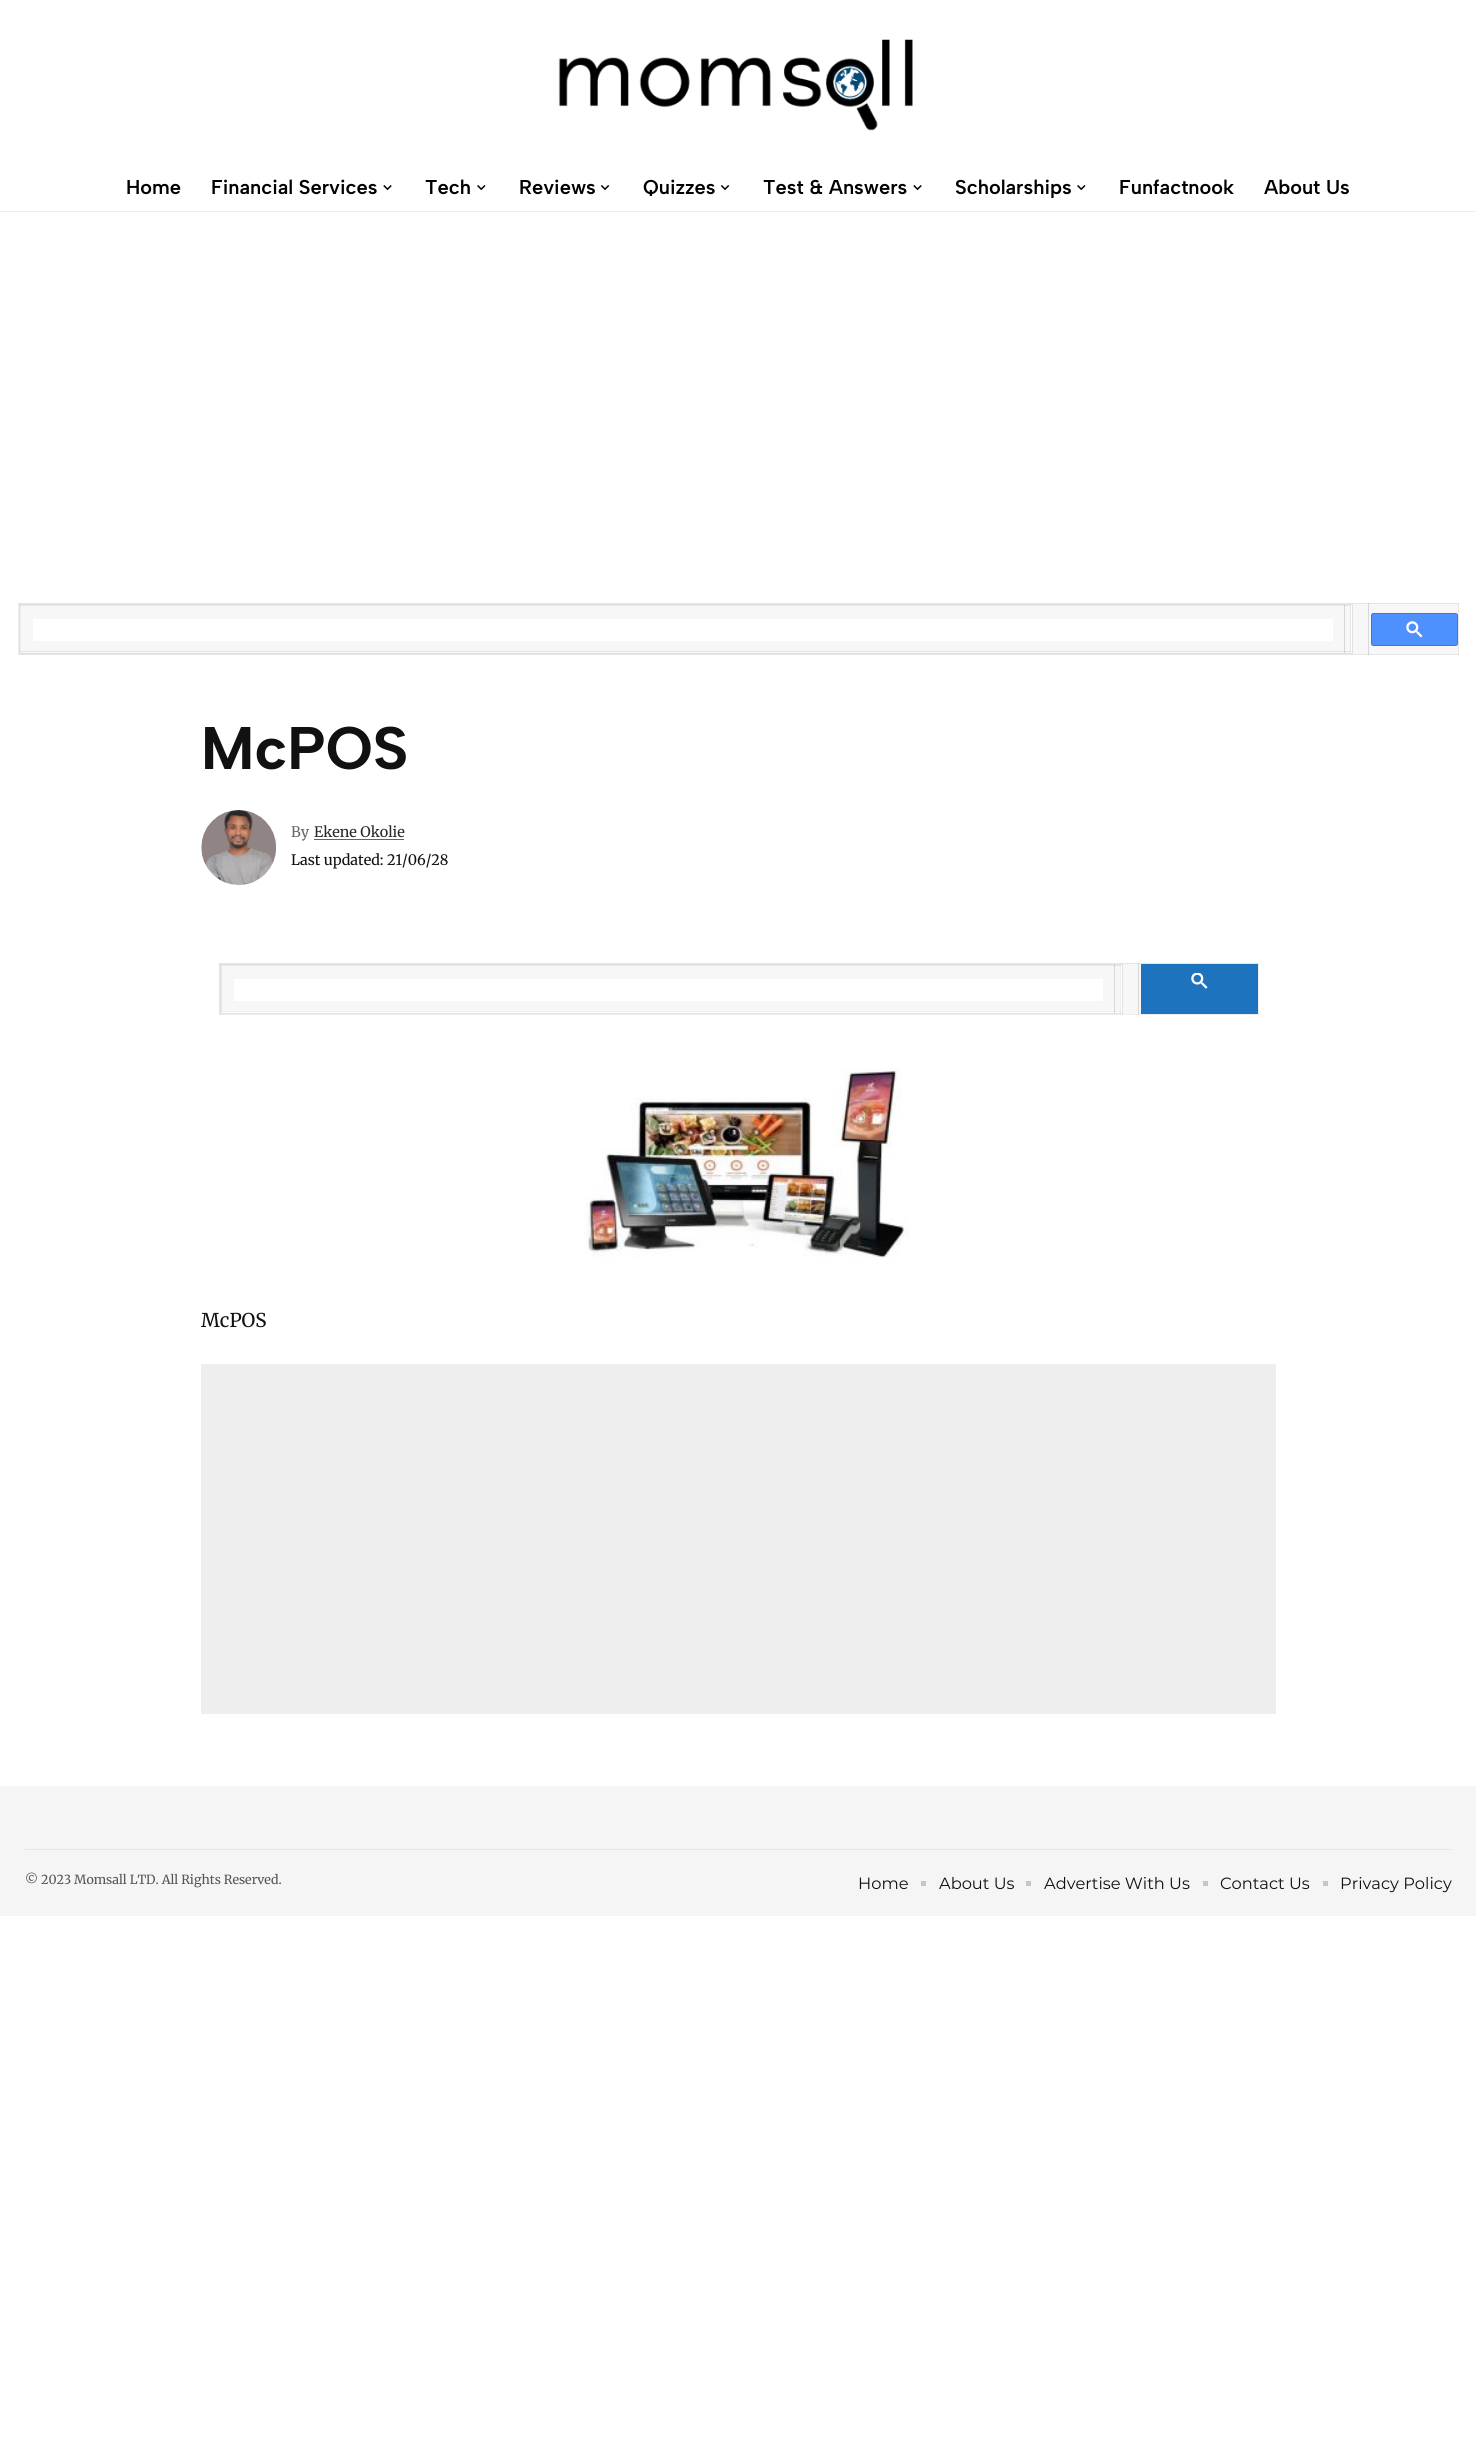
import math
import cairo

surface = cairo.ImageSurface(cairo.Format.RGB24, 1476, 2445)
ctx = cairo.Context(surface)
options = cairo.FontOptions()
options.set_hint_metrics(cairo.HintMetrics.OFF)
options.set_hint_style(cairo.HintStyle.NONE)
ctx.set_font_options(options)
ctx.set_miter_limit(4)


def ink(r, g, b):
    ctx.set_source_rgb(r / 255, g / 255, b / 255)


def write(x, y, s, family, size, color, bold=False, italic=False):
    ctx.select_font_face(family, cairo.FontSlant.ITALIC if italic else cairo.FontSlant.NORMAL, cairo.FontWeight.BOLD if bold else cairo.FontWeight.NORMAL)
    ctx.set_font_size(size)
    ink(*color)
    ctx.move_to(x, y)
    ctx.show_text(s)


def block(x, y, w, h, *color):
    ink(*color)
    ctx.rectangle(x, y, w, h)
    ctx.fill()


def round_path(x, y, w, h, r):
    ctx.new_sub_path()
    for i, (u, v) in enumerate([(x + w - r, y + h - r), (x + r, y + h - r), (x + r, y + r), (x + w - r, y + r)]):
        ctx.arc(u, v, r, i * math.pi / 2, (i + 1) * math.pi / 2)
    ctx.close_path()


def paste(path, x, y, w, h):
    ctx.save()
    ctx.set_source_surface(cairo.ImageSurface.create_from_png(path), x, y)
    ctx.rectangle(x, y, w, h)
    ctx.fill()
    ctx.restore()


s1 = dict(family="Albert Sans SemiBold", size=20, color=(0, 0, 0))
s2 = dict(family="Albert Sans", size=60, color=(17, 17, 17), bold=True)
s3 = dict(family="Merriweather Light", size=14.4, color=(102, 102, 102))
s4 = dict(family="Merriweather Light", size=14.4, color=(40, 40, 40))
s5 = dict(family="Merriweather Light", size=14.4, color=(17, 17, 17))
s6 = dict(family="Merriweather Light", size=19, color=(17, 17, 17))
s7 = dict(family="Merriweather Light", size=12.5, color=(85, 85, 85))
s8 = dict(family="Montserrat", size=16.25, color=(17, 17, 17))

ink(255, 255, 255)
ctx.paint()
block(219, 1014, 1040, 1, 237, 237, 237)
block(219, 1014, 1, 1, 222, 222, 222)
block(1138, 1014, 1, 1, 198, 198, 198)
block(1258, 963, 1, 52, 237, 237, 237)
block(1258, 1014, 1, 1, 222, 222, 222)
block(1258, 963, 1, 1, 222, 222, 222)
block(18, 603, 1, 52, 237, 237, 237)
block(18, 654, 1, 1, 222, 222, 222)
block(18, 603, 1, 1, 222, 222, 222)
paste("pic1.png", 558, 39, 355, 92)
write(126, 194, "Home", **s1)
write(211, 194, "Financial Services", **s1)
paste("pic2.png", 383, 185, 9, 6)
write(425, 194, "Tech", **s1)
paste("pic3.png", 477, 185, 9, 6)
write(519, 194, "Reviews", **s1)
paste("pic4.png", 600, 185, 10, 6)
write(643, 194, "Quizzes", **s1)
paste("pic4.png", 720, 185, 10, 6)
write(763, 194, "Test & Answers", **s1)
paste("pic2.png", 913, 185, 9, 6)
write(955, 194, "Scholarships", **s1)
paste("pic3.png", 1077, 185, 9, 6)
write(1119, 194, "Funfactnook", **s1)
write(1264, 194, "About Us", **s1)
block(0, 211, 1476, 1, 237, 237, 237)
block(1353, 604, 105, 50, 247, 247, 247)
block(19, 654, 1350, 1, 230, 230, 230)
block(19, 603, 1350, 1, 230, 230, 230)
block(1368, 603, 1, 52, 216, 216, 216)
block(1368, 654, 91, 1, 230, 230, 230)
block(1368, 654, 1, 1, 194, 194, 194)
block(1458, 603, 1, 52, 230, 230, 230)
block(1458, 654, 1, 1, 216, 216, 216)
block(20, 605, 1, 48, 237, 237, 237)
block(20, 651, 1, 1, 222, 222, 222)
block(20, 605, 1, 1, 222, 222, 222)
ctx.rectangle(19.5, 604.5, 1333, 49)
ink(223, 225, 229)
ctx.set_line_width(1)
ctx.stroke()
block(21, 606, 1329, 47, 247, 247, 247)
block(21, 651, 1324, 1, 230, 230, 230)
block(21, 605, 1324, 1, 230, 230, 230)
block(1344, 605, 1, 48, 216, 216, 216)
block(1344, 651, 7, 1, 230, 230, 230)
block(1344, 651, 1, 1, 194, 194, 194)
block(1350, 605, 1, 48, 230, 230, 230)
block(1350, 651, 1, 1, 216, 216, 216)
block(1344, 605, 7, 1, 230, 230, 230)
block(1344, 605, 1, 1, 194, 194, 194)
block(1350, 605, 1, 1, 216, 216, 216)
block(33, 619, 1300, 22, 255, 255, 255)
block(1368, 603, 91, 1, 230, 230, 230)
block(1368, 603, 1, 1, 194, 194, 194)
block(1458, 603, 1, 1, 216, 216, 216)
ink(77, 144, 254)
round_path(1371.5, 613.5, 86, 32, 2)
ctx.fill_preserve()
ink(48, 121, 237)
ctx.stroke()
paste("pic5.png", 1406, 621, 17, 17)
write(201, 769, "McPOS", **s2)
paste("pic6.png", 201, 810, 76, 75)
write(291, 837, "By", **s3)
write(314, 837, "Ekene Okolie", **s4)
block(314, 839, 90, 1, 30, 115, 190)
write(291, 865, "Last updated: 21/06/28", **s5)
block(1123, 964, 18, 50, 247, 247, 247)
block(219, 963, 1, 51, 230, 230, 230)
block(219, 963, 920, 1, 230, 230, 230)
block(219, 963, 1, 1, 216, 216, 216)
block(1138, 963, 1, 51, 216, 216, 216)
block(1138, 963, 120, 1, 230, 230, 230)
block(1138, 963, 1, 1, 194, 194, 194)
block(221, 1012, 1, 1, 237, 237, 237)
block(221, 1011, 900, 1, 237, 237, 237)
block(221, 1011, 1, 1, 222, 222, 222)
block(1114, 1012, 1, 1, 222, 222, 222)
block(1114, 1011, 1, 1, 198, 198, 198)
block(1120, 965, 1, 48, 237, 237, 237)
block(1120, 1011, 1, 1, 222, 222, 222)
block(1120, 965, 1, 1, 222, 222, 222)
ctx.rectangle(220.5, 964.5, 902, 49)
ink(223, 225, 229)
ctx.stroke()
block(222, 966, 898, 45, 247, 247, 247)
block(221, 965, 1, 46, 230, 230, 230)
block(221, 965, 894, 1, 230, 230, 230)
block(221, 965, 1, 1, 216, 216, 216)
block(1114, 965, 1, 46, 216, 216, 216)
block(1114, 965, 6, 1, 230, 230, 230)
block(1114, 965, 1, 1, 194, 194, 194)
block(234, 979, 869, 22, 255, 255, 255)
block(1141, 964, 117, 50, 30, 115, 190)
paste("pic7.png", 1191, 973, 17, 16)
paste("pic8.png", 584, 1068, 325, 190)
write(201, 1327, "McPOS", **s6)
block(201, 1364, 1075, 350, 238, 238, 238)
block(0, 1786, 1476, 130, 245, 245, 245)
block(25, 1849, 1426, 1, 229, 229, 229)
write(25, 1884, "© 2023 Momsall LTD. All Rights Reserved.", **s7)
write(858, 1889, "Home", **s8)
block(921, 1881, 5, 5, 199, 199, 199)
write(939, 1889, "About Us", **s8)
block(1026, 1881, 5, 5, 199, 199, 199)
write(1044, 1889, "Advertise With Us", **s8)
block(1203, 1881, 5, 5, 199, 199, 199)
write(1220, 1889, "Contact Us", **s8)
block(1323, 1881, 5, 5, 199, 199, 199)
write(1340, 1889, "Privacy Policy", **s8)
surface.write_to_png("screenshot.png")
